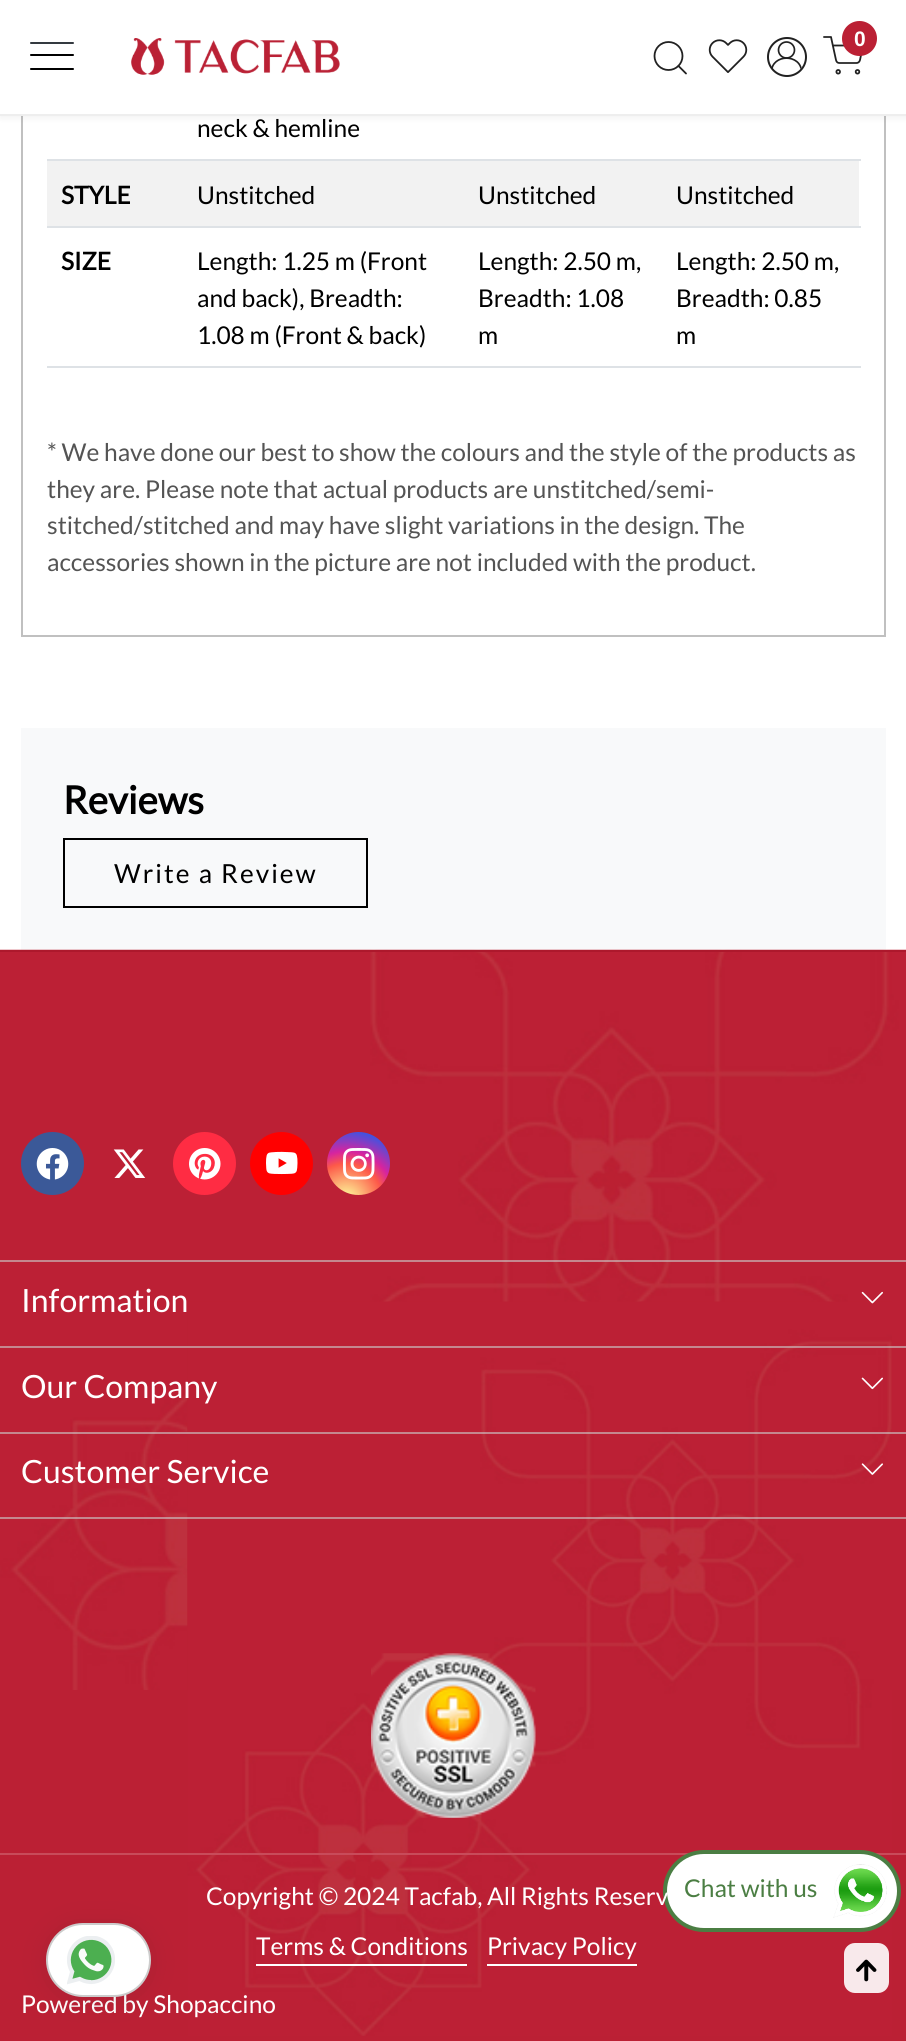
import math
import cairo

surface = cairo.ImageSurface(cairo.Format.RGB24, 906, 2041)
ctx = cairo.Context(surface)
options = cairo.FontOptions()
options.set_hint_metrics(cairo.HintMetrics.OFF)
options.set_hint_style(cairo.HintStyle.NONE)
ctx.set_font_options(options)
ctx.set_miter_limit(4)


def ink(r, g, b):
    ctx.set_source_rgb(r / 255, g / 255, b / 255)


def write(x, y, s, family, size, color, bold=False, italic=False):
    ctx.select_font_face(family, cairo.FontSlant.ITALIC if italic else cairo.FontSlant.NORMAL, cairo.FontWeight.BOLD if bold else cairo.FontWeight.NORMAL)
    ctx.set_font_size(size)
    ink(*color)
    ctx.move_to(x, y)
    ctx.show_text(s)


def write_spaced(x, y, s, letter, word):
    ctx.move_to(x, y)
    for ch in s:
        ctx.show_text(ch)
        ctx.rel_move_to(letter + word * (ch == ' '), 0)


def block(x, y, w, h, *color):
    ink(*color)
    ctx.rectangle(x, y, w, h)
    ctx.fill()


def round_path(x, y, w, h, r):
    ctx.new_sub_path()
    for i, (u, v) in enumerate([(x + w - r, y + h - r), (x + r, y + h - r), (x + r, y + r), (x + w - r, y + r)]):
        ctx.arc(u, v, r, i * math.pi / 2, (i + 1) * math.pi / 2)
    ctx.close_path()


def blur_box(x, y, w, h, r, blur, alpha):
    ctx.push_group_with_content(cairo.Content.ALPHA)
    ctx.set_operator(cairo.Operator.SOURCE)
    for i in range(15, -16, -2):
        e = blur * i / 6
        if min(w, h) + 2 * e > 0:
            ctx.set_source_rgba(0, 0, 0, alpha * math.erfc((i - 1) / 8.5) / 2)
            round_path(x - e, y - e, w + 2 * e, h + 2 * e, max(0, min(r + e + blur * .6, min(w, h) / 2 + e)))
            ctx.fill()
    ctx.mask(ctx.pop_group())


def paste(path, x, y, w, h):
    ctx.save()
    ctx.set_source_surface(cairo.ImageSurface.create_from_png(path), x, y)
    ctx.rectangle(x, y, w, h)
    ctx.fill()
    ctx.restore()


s1 = dict(family="Liberation Sans", size=21, color=(255, 255, 255), bold=True)
s2 = dict(family="Lato", size=24.5, color=(0, 0, 0))
s3 = dict(family="Lato", size=24.5, color=(0, 0, 0), bold=True)
s4 = dict(family="Lato", size=24.5, color=(84, 84, 84))
s5 = dict(family="Lato", size=38.5, color=(0, 0, 0), bold=True)
s6 = dict(family="Lato", size=32, color=(255, 255, 255))
s7 = dict(family="Lato", size=24.5, color=(75, 126, 67))
s8 = dict(family="Lato", size=24.5, color=(255, 255, 255))

ink(255, 255, 255)
ctx.paint()
ctx.rectangle(22, -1, 863, 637)
ink(192, 192, 192)
ctx.stroke()
ink(5, 5, 10)
blur_box(0, 0, 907, 116, 0, 4.5, 0.08)
block(0, 114, 906, 2, 238, 238, 238)
block(0, 0, 906, 114, 255, 255, 255)
ink(0, 0, 0)
round_path(30, 68, 44, 2, 1)
ctx.fill()
round_path(30, 54, 44, 2, 1)
ctx.fill()
ink(52, 58, 64)
round_path(30, 42, 44, 2, 1)
ctx.fill()
paste("pic1.png", 131, 38, 209, 37)
ctx.arc(668.5, 56, 14, 0, 2 * math.pi)
ink(33, 33, 33)
ctx.set_line_width(1.8)
ctx.stroke()
ctx.new_path()
ctx.move_to(686, 73.5)
ctx.line_to(678.5, 66)
ctx.set_line_cap(cairo.LineCap.ROUND)
ctx.set_line_join(cairo.LineJoin.ROUND)
ctx.stroke()
paste("pic2.png", 708, 39, 40, 34)
ctx.arc(787, 57, 19, 0, 2 * math.pi)
ctx.set_line_width(2)
ctx.set_line_cap(cairo.LineCap.BUTT)
ctx.set_line_join(cairo.LineJoin.MITER)
ctx.stroke()
ctx.save()
round_path(768, 39, 37, 36, 18)
ctx.clip()
ctx.new_path()
ctx.move_to(771.5, 72)
ctx.curve_to(771.5, 53.5, 801.5, 53.5, 801.5, 72)
ctx.set_line_width(1.7)
ctx.set_line_cap(cairo.LineCap.SQUARE)
ctx.stroke()
ctx.restore()
ctx.arc(786.5, 50, 8, 0, 2 * math.pi)
ctx.set_line_width(1.7)
ctx.stroke()
ctx.new_path()
ctx.move_to(824, 37)
ctx.line_to(831, 37)
ctx.line_to(836, 60)
ctx.curve_to(836.5, 62, 837.5, 63, 839.5, 63)
ctx.line_to(856.5, 63)
ctx.curve_to(858, 63, 859.5, 62, 860, 60)
ctx.line_to(863, 45.5)
ctx.line_to(833, 45.5)
ctx.set_line_width(1.8)
ctx.set_line_cap(cairo.LineCap.ROUND)
ctx.set_line_join(cairo.LineJoin.ROUND)
ctx.stroke()
ink(187, 32, 52)
ctx.arc(859.5, 38.5, 17.5, 0, 2 * math.pi)
ctx.fill()
write(854, 46, "0", **s1)
ctx.new_path()
ctx.arc(838.2, 71.8, 1.8, 0, 2 * math.pi)
ink(33, 33, 33)
ctx.set_line_cap(cairo.LineCap.BUTT)
ctx.set_line_join(cairo.LineJoin.MITER)
ctx.stroke()
ctx.arc(857.5, 71.8, 1.8, 0, 2 * math.pi)
ctx.stroke()
write(197, 137, "neck & hemline", **s2)
block(47, 159, 814, 2, 222, 226, 230)
block(47, 161, 812, 65, 242, 242, 242)
write(61, 204, "STYLE", **s3)
write(197, 204, "Unstitched", **s2)
write(478, 204, "Unstitched", **s2)
block(47, 226, 814, 2, 222, 226, 230)
write(676, 204, "Unstitched", **s2)
write(61, 270, "SIZE", **s3)
write(197, 270, "Length: 1.25 m (Front", **s2)
write(197, 307, "and back), Breadth:", **s2)
write(197, 344, "1.08 m (Front & back)", **s2)
write(478, 270, "Length: 2.50 m,", **s2)
write(478, 307, "Breadth: 1.08", **s2)
write(478, 344, "m", **s2)
block(47, 366, 814, 2, 222, 226, 230)
write(676, 270, "Length: 2.50 m,", **s2)
write(676, 307, "Breadth: 0.85", **s2)
write(676, 344, "m", **s2)
write(47, 461, "* We have done our best to show the colours and the style of the products as", **s4)
write(47, 498, "they are. Please note that actual products are unstitched/semi-", **s4)
write(47, 534, "stitched/stitched and may have slight variations in the design. The", **s4)
write(47, 571, "accessories shown in the picture are not included with the product.", **s4)
block(21, 728, 865, 222, 248, 249, 250)
write(63, 814, "Reviews", **s5)
ctx.rectangle(64, 839, 303, 68)
ctx.set_line_width(2)
ctx.stroke()
ctx.select_font_face("Lato")
ctx.set_font_size(26.25)
write_spaced(114, 883, "Write a Review", 2, 0)
block(0, 1690, 906, 351, 187, 32, 52)
paste("pic3.png", 0, 949, 906, 741)
block(0, 950, 906, 2, 173, 24, 44)
paste("pic14.png", 187, 1301, 705, 735)
block(0, 1853, 906, 2, 200, 75, 90)
ink(59, 89, 152)
ctx.arc(52.5, 1163.5, 31.5, 0, 2 * math.pi)
ctx.fill()
paste("pic4.png", 36, 1148, 33, 32)
paste("pic5.png", 113, 1149, 33, 29)
ink(255, 44, 67)
ctx.arc(204.5, 1163.5, 31.5, 0, 2 * math.pi)
ctx.fill()
paste("pic6.png", 189, 1148, 32, 32)
ink(255, 0, 0)
ctx.arc(281.5, 1163.5, 31.5, 0, 2 * math.pi)
ctx.fill()
paste("pic7.png", 266, 1151, 32, 24)
gradient = cairo.RadialGradient(346, 1200, 0, 346, 1200, 81)
gradient.add_color_stop_rgba(0, 0.992, 0.957, 0.592, 1)
gradient.add_color_stop_rgba(0.05, 0.992, 0.957, 0.592, 1)
gradient.add_color_stop_rgba(0.45, 0.992, 0.349, 0.286, 1)
gradient.add_color_stop_rgba(0.6, 0.839, 0.141, 0.624, 1)
gradient.add_color_stop_rgba(0.9, 0.157, 0.353, 0.922, 1)
ctx.set_source(gradient)
ctx.arc(358.5, 1163.5, 31.5, 0, 2 * math.pi)
ctx.fill()
paste("pic8.png", 343, 1148, 32, 32)
ctx.set_source_rgba(0.8, 0.8, 0.8, 0.6)
ctx.rectangle(0, 1260, 906, 2)
ctx.fill()
ctx.rectangle(0, 1346, 906, 2)
ctx.fill()
write(21, 1312, "Information", **s6)
paste("pic9.png", 861, 1291, 22, 13)
ctx.set_source_rgba(0.8, 0.8, 0.8, 0.6)
ctx.rectangle(0, 1432, 906, 2)
ctx.fill()
write(21, 1398, "Our Company", **s6)
paste("pic10.png", 861, 1377, 22, 13)
ctx.set_source_rgba(0.8, 0.8, 0.8, 0.6)
ctx.rectangle(0, 1517, 906, 2)
ctx.fill()
write(21, 1483, "Customer Service", **s6)
paste("pic11.png", 861, 1463, 22, 12)
paste("pic12.png", 371, 1653, 165, 165)
round_path(665, 1852, 234, 78, 39)
ctx.fill_preserve()
ink(75, 126, 67)
ctx.set_line_width(4)
ctx.stroke()
write(684, 1897, "Chat with us", **s7)
paste("pic13.png", 833, 1864, 54, 54)
write(206, 1905, "Copyright © 2024 Tacfab, All Rights Reserv", **s8)
write(256, 1955, "Terms & Conditions", **s8)
block(256, 1964, 211, 2, 255, 255, 255)
write(487, 1955, "Privacy Policy", **s8)
block(487, 1964, 150, 2, 255, 255, 255)
write(21, 2013, "Powered by Shopaccino", **s8)
ink(32, 33, 36)
blur_box(46, 1925, 105, 74, 37, 13, 0.1)
ink(255, 255, 255)
round_path(47, 1924, 103, 72, 36)
ctx.fill_preserve()
ink(204, 204, 204)
ctx.set_line_width(2)
ctx.stroke()
paste("pic15.png", 67, 1936, 48, 49)
ctx.set_source_rgba(1, 1, 1, 0.9)
round_path(844, 1943, 45, 50, 11)
ctx.fill()
paste("pic16.png", 856, 1959, 21, 23)
surface.write_to_png("screenshot.png")
